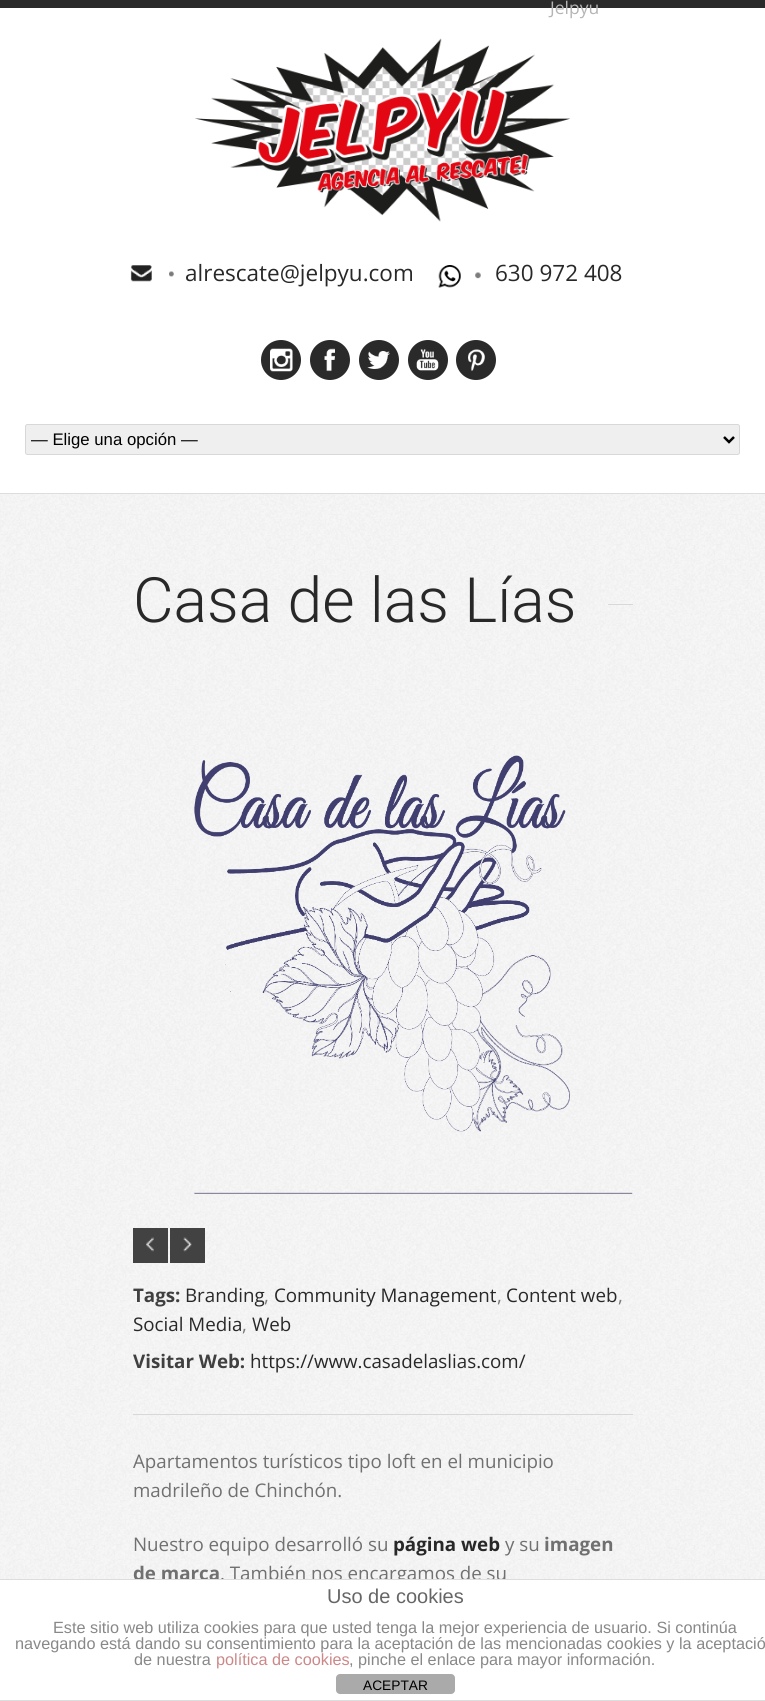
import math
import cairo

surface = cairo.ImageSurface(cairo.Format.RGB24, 765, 1701)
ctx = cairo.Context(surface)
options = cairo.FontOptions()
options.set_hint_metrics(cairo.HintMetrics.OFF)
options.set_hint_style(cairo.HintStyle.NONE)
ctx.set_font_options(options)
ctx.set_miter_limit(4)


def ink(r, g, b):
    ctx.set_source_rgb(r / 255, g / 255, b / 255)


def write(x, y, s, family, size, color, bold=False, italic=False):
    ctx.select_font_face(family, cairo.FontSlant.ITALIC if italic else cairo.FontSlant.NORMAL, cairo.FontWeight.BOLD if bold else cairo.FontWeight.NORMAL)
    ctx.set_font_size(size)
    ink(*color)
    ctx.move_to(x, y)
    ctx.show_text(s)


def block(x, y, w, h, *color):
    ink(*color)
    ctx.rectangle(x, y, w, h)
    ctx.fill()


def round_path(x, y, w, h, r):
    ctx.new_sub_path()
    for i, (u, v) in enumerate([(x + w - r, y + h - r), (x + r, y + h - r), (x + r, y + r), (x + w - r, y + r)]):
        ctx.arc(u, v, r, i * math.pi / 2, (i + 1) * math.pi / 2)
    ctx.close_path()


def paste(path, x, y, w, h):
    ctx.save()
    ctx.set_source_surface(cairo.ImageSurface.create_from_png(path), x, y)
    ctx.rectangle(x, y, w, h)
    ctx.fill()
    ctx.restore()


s1 = dict(family="Open Sans", size=22.5, color=(40, 40, 40))
s2 = dict(family="Open Sans", size=17.5, color=(181, 181, 181))
s3 = dict(family="Liberation Sans", size=16.75, color=(0, 0, 0))
s4 = dict(family="Roboto Light", size=62.5, color=(40, 40, 40))
s5 = dict(family="Open Sans", size=18.75, color=(64, 64, 64), bold=True)
s6 = dict(family="Open Sans", size=18.75, color=(40, 40, 40))
s7 = dict(family="Open Sans", size=18.75, color=(122, 122, 122))
s8 = dict(family="Open Sans", size=18.75, color=(112, 112, 112))
s9 = dict(family="Open Sans", size=18.75, color=(40, 40, 40), bold=True)
s10 = dict(family="Open Sans", size=18.75, color=(112, 112, 112), bold=True)
s11 = dict(family="Liberation Sans", size=20, color=(102, 102, 102))
s12 = dict(family="Liberation Sans", size=16.25, color=(136, 136, 136))
s13 = dict(family="Liberation Sans", size=16.25, color=(204, 136, 136))
s14 = dict(family="Liberation Sans", size=13.75, color=(0, 0, 0))

ink(255, 255, 255)
ctx.paint()
paste("pic1.png", 0, 494, 765, 1085)
block(0, 0, 765, 8, 42, 42, 42)
block(0, 493, 765, 1, 221, 221, 221)
paste("pic2.png", 130, 265, 44, 17)
write(185, 281, "alrescate@jelpyu.com", **s1)
write(550, 14, "Jelpyu", **s2)
paste("pic3.png", 438, 265, 43, 23)
write(495, 281, "630 972 408", **s1)
ink(42, 42, 42)
ctx.new_path()
ctx.arc(281, 360, 20, 0, 2 * math.pi)
ctx.fill()
paste("pic4.png", 270, 348, 23, 24)
ctx.arc(330, 360, 20, 0, 2 * math.pi)
ctx.fill()
paste("pic5.png", 324, 348, 11, 24)
ctx.arc(379, 360, 20, 0, 2 * math.pi)
ctx.fill()
paste("pic6.png", 367, 351, 23, 18)
ctx.arc(428, 360, 20, 0, 2 * math.pi)
ctx.fill()
paste("pic7.png", 416, 349, 23, 22)
ctx.arc(476, 360, 20, 0, 2 * math.pi)
ctx.fill()
paste("pic8.png", 468, 349, 17, 22)
ink(239, 239, 239)
round_path(25.5, 424.5, 714, 30, 2)
ctx.fill_preserve()
ink(216, 216, 216)
ctx.set_line_width(1)
ctx.stroke()
ctx.new_path()
ctx.move_to(724, 437)
ctx.line_to(729, 442)
ctx.line_to(734, 437)
ink(0, 0, 0)
ctx.set_line_width(2.5)
ctx.stroke()
write(31, 445, "— Elige una opción —", **s3)
paste("pic9.png", 195, 38, 375, 184)
write(133, 622, "Casa de las Lías", **s4)
block(608, 604, 25, 1, 216, 216, 216)
paste("pic10.png", 194, 755, 439, 439)
block(133, 1414, 500, 1, 216, 216, 216)
block(133, 1228, 35, 35, 66, 66, 66)
paste("pic11.png", 146, 1237, 8, 15)
block(170, 1228, 35, 35, 66, 66, 66)
paste("pic12.png", 183, 1237, 9, 15)
write(133, 1302, "Tags:", **s5)
write(185, 1302, "Branding", **s6)
write(264, 1302, ",", **s7)
write(274, 1302, "Community Management", **s6)
write(497, 1302, ",", **s7)
write(506, 1302, "Content web", **s6)
write(618, 1302, ",", **s7)
write(133, 1331, "Social Media", **s6)
write(242, 1331, ",", **s7)
write(252, 1331, "Web", **s6)
write(133, 1368, "Visitar Web:", **s5)
write(250, 1368, "https://www.casadelaslias.com/", **s6)
write(133, 1468, "Apartamentos turísticos tipo loft en el municipio", **s8)
write(133, 1497, "madrileño de Chinchón.", **s8)
write(133, 1551, "Nuestro equipo desarrolló su", **s8)
write(393, 1551, "página web", **s9)
write(505, 1551, "y su", **s8)
write(544, 1551, "imagen", **s10)
write(133, 1580, "de marca", **s10)
write(220, 1580, ". También nos encargamos de su", **s8)
block(136, 1580, 366, 5, 255, 255, 255)
block(0, 1579, 765, 1, 221, 221, 221)
block(0, 1700, 765, 1, 221, 221, 221)
write(327, 1603, "Uso de cookies", **s11)
write(53, 1633, "Este sitio web utiliza cookies para que usted tenga la mejor experiencia de usuario. Si continúa", **s12)
write(15, 1649, "navegando está dando su consentimiento para la aceptación de las mencionadas cookies y la aceptació", **s12)
write(134, 1665, "de nuestra", **s12)
write(216, 1665, "política de cookies", **s13)
write(349, 1665, ", pinche el enlace para mayor información.", **s12)
ink(170, 170, 170)
round_path(336, 1674, 119, 20, 4)
ctx.fill()
write(363, 1690, "ACEPTAR", **s14)
surface.write_to_png("screenshot.png")
